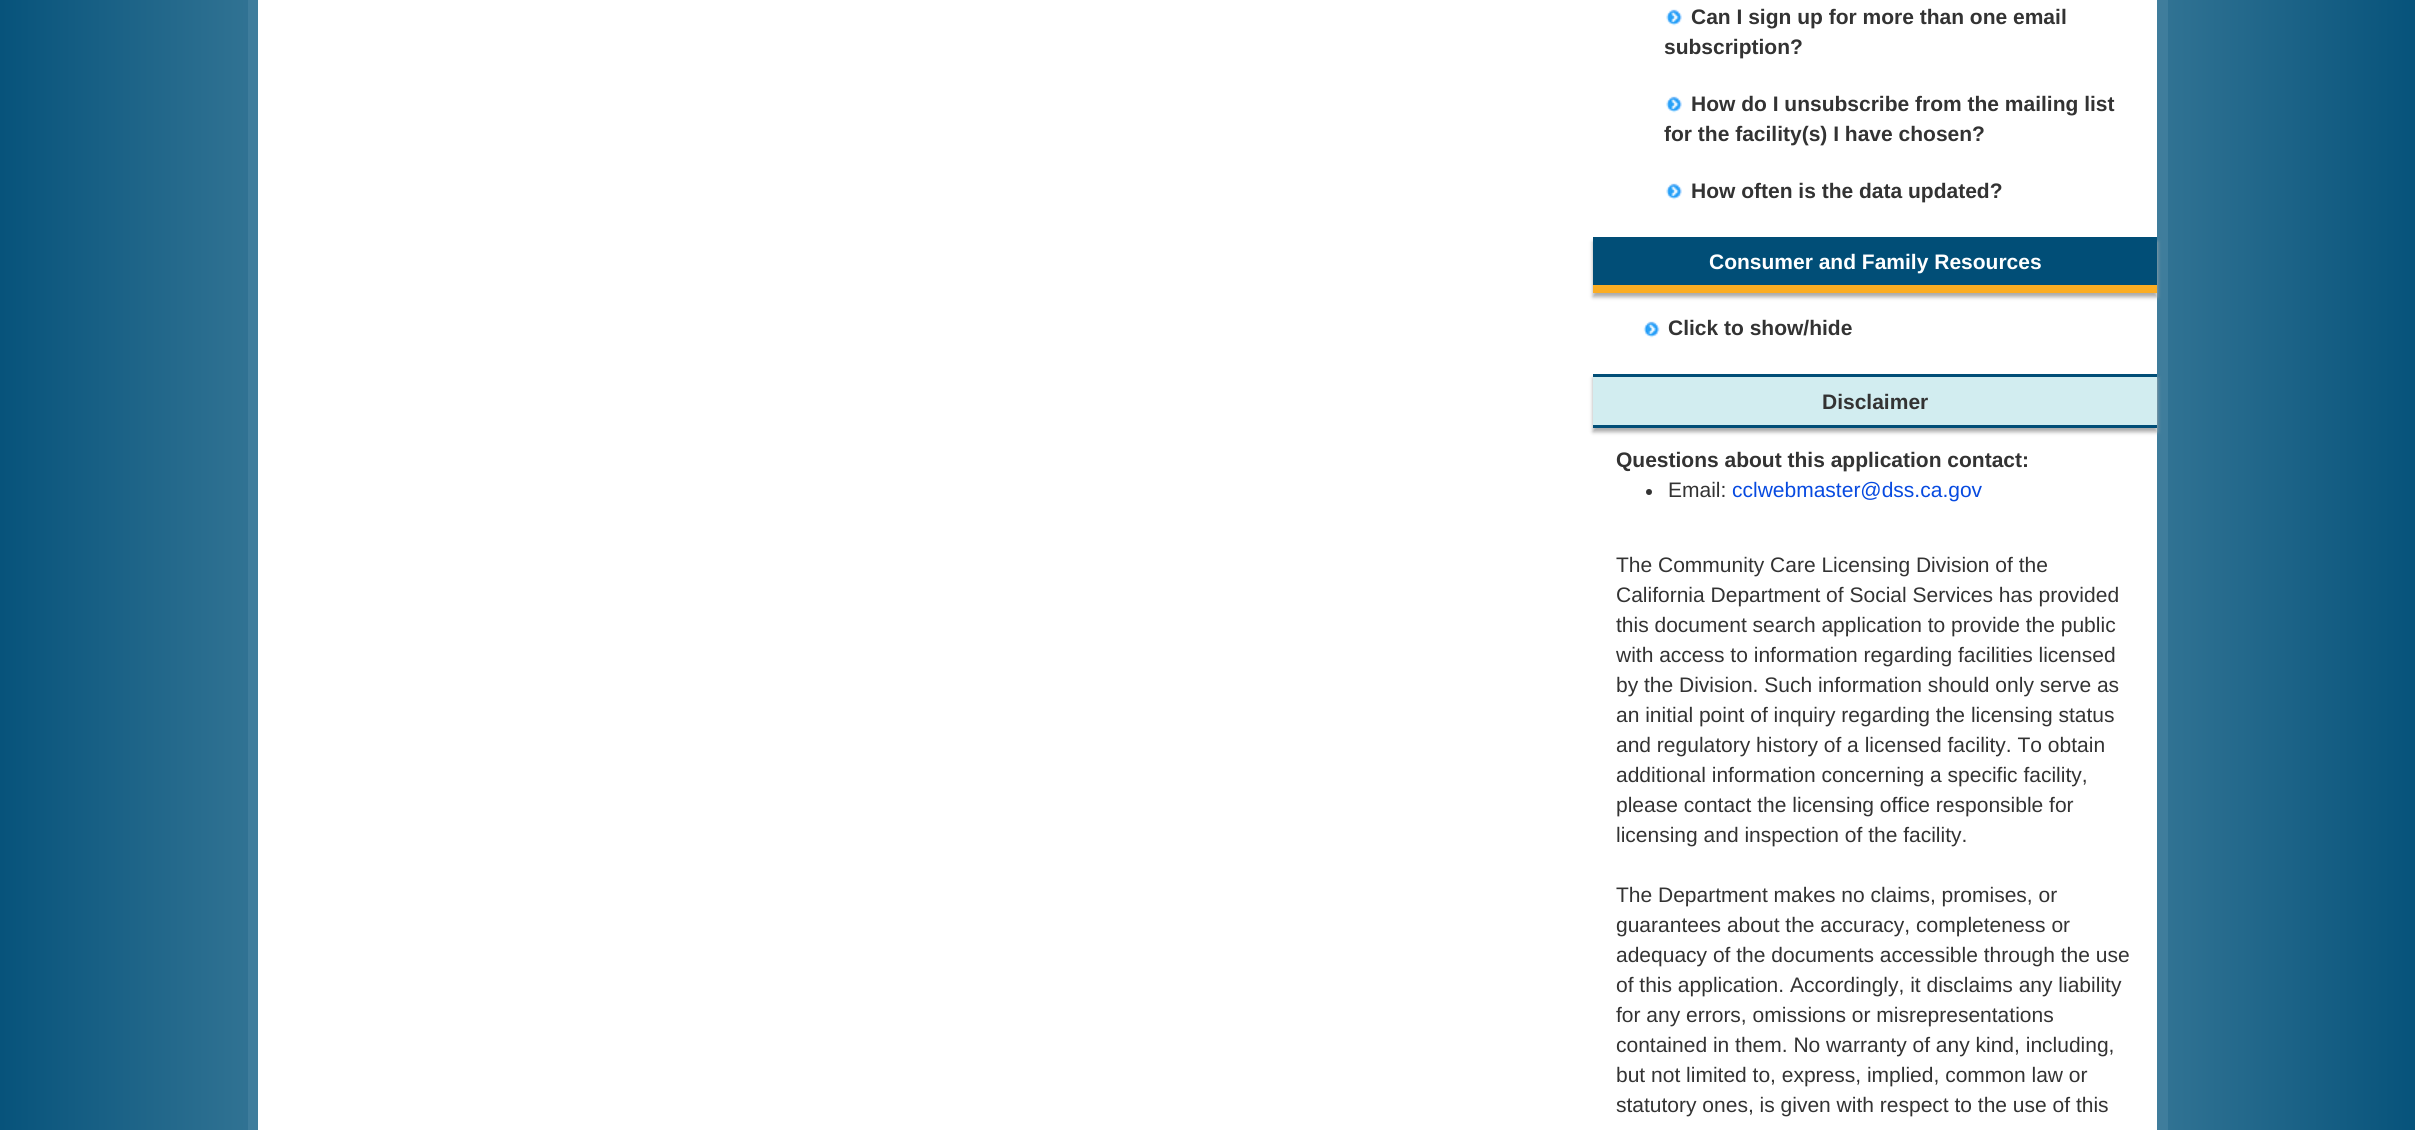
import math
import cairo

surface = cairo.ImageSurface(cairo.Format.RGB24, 2415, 1130)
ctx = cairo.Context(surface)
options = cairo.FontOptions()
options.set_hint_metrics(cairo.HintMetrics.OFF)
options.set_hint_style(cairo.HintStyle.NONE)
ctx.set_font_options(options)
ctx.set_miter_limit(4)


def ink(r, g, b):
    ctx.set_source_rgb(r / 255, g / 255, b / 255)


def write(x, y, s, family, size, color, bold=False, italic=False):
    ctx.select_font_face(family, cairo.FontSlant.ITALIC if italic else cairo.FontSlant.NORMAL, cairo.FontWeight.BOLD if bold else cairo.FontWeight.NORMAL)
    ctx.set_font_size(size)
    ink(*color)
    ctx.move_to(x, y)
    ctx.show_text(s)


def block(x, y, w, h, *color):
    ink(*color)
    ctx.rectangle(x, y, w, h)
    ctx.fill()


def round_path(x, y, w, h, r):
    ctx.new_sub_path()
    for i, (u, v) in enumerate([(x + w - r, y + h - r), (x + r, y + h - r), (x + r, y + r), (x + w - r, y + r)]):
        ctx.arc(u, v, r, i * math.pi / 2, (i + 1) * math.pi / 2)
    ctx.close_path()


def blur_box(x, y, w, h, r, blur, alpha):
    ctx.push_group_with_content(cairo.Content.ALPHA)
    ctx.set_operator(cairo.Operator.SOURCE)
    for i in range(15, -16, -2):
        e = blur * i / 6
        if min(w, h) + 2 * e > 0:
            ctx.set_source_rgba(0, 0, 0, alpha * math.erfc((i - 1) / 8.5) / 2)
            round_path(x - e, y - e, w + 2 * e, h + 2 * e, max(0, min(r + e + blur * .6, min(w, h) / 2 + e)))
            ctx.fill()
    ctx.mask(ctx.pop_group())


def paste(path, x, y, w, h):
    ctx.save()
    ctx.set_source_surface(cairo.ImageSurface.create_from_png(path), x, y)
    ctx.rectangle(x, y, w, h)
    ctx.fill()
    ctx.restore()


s1 = dict(family="Liberation Sans", size=21, color=(51, 51, 51), bold=True)
s2 = dict(family="Liberation Sans", size=21, color=(255, 255, 255), bold=True)
s3 = dict(family="Liberation Sans", size=21, color=(51, 51, 51))
s4 = dict(family="Liberation Sans", size=21, color=(7, 74, 224))

ink(255, 255, 255)
ctx.paint()
gradient = cairo.LinearGradient(0, 47, 2415, 47)
gradient.add_color_stop_rgba(0, 0.027, 0.325, 0.482, 1)
gradient.add_color_stop_rgba(0.5, 0.82, 0.929, 0.941, 1)
gradient.add_color_stop_rgba(1, 0.027, 0.325, 0.482, 1)
ctx.set_source(gradient)
ctx.rectangle(0, 0, 2415, 1130)
ctx.fill()
block(258, 0, 1899, 1130, 255, 255, 255)
block(2157, 0, 11, 1130, 63, 125, 156)
block(248, 0, 10, 1130, 63, 125, 156)
paste("pic1.png", 1666, 9, 16, 17)
write(1691, 24, "Can I sign up for more than one email", **s1)
write(1664, 54, "subscription?", **s1)
paste("pic1.png", 1666, 96, 16, 17)
write(1691, 111, "How do I unsubscribe from the mailing list", **s1)
write(1664, 141, "for the facility(s) I have chosen?", **s1)
paste("pic1.png", 1666, 183, 16, 17)
write(1691, 198, "How often is the data updated?", **s1)
ink(170, 170, 170)
blur_box(1593, 242, 564, 55, 0, 2, 1)
block(1593, 237, 564, 48, 1, 78, 119)
block(1593, 285, 564, 8, 251, 173, 35)
write(1709, 269, "Consumer and Family Resources", **s2)
paste("pic2.png", 1643, 321, 17, 17)
write(1668, 335, "Click to show/hide", **s1)
ink(170, 170, 170)
blur_box(1593, 378, 564, 54, 0, 2, 1)
block(1593, 377, 564, 48, 210, 237, 240)
block(1593, 374, 564, 3, 1, 78, 119)
block(1593, 425, 564, 3, 1, 78, 119)
write(1822, 409, "Disclaimer", **s1)
write(1616, 467, "Questions about this application contact:", **s1)
ctx.new_path()
ctx.arc(1649, 492, 3, 0, 2 * math.pi)
ctx.fill()
write(1668, 497, "Email:", **s3)
write(1732, 497, "cclwebmaster@dss.ca.gov", **s4)
write(1616, 572, "The Community Care Licensing Division of the", **s3)
write(1616, 602, "California Department of Social Services has provided", **s3)
write(1616, 632, "this document search application to provide the public", **s3)
write(1616, 662, "with access to information regarding facilities licensed", **s3)
write(1616, 692, "by the Division. Such information should only serve as", **s3)
write(1616, 722, "an initial point of inquiry regarding the licensing status", **s3)
write(1616, 752, "and regulatory history of a licensed facility. To obtain", **s3)
write(1616, 782, "additional information concerning a specific facility,", **s3)
write(1616, 812, "please contact the licensing office responsible for", **s3)
write(1616, 842, "licensing and inspection of the facility.", **s3)
write(1616, 902, "The Department makes no claims, promises, or", **s3)
write(1616, 932, "guarantees about the accuracy, completeness or", **s3)
write(1616, 962, "adequacy of the documents accessible through the use", **s3)
write(1616, 992, "of this application. Accordingly, it disclaims any liability", **s3)
write(1616, 1022, "for any errors, omissions or misrepresentations", **s3)
write(1616, 1052, "contained in them. No warranty of any kind, including,", **s3)
write(1616, 1082, "but not limited to, express, implied, common law or", **s3)
write(1616, 1112, "statutory ones, is given with respect to the use of this", **s3)
surface.write_to_png("screenshot.png")
